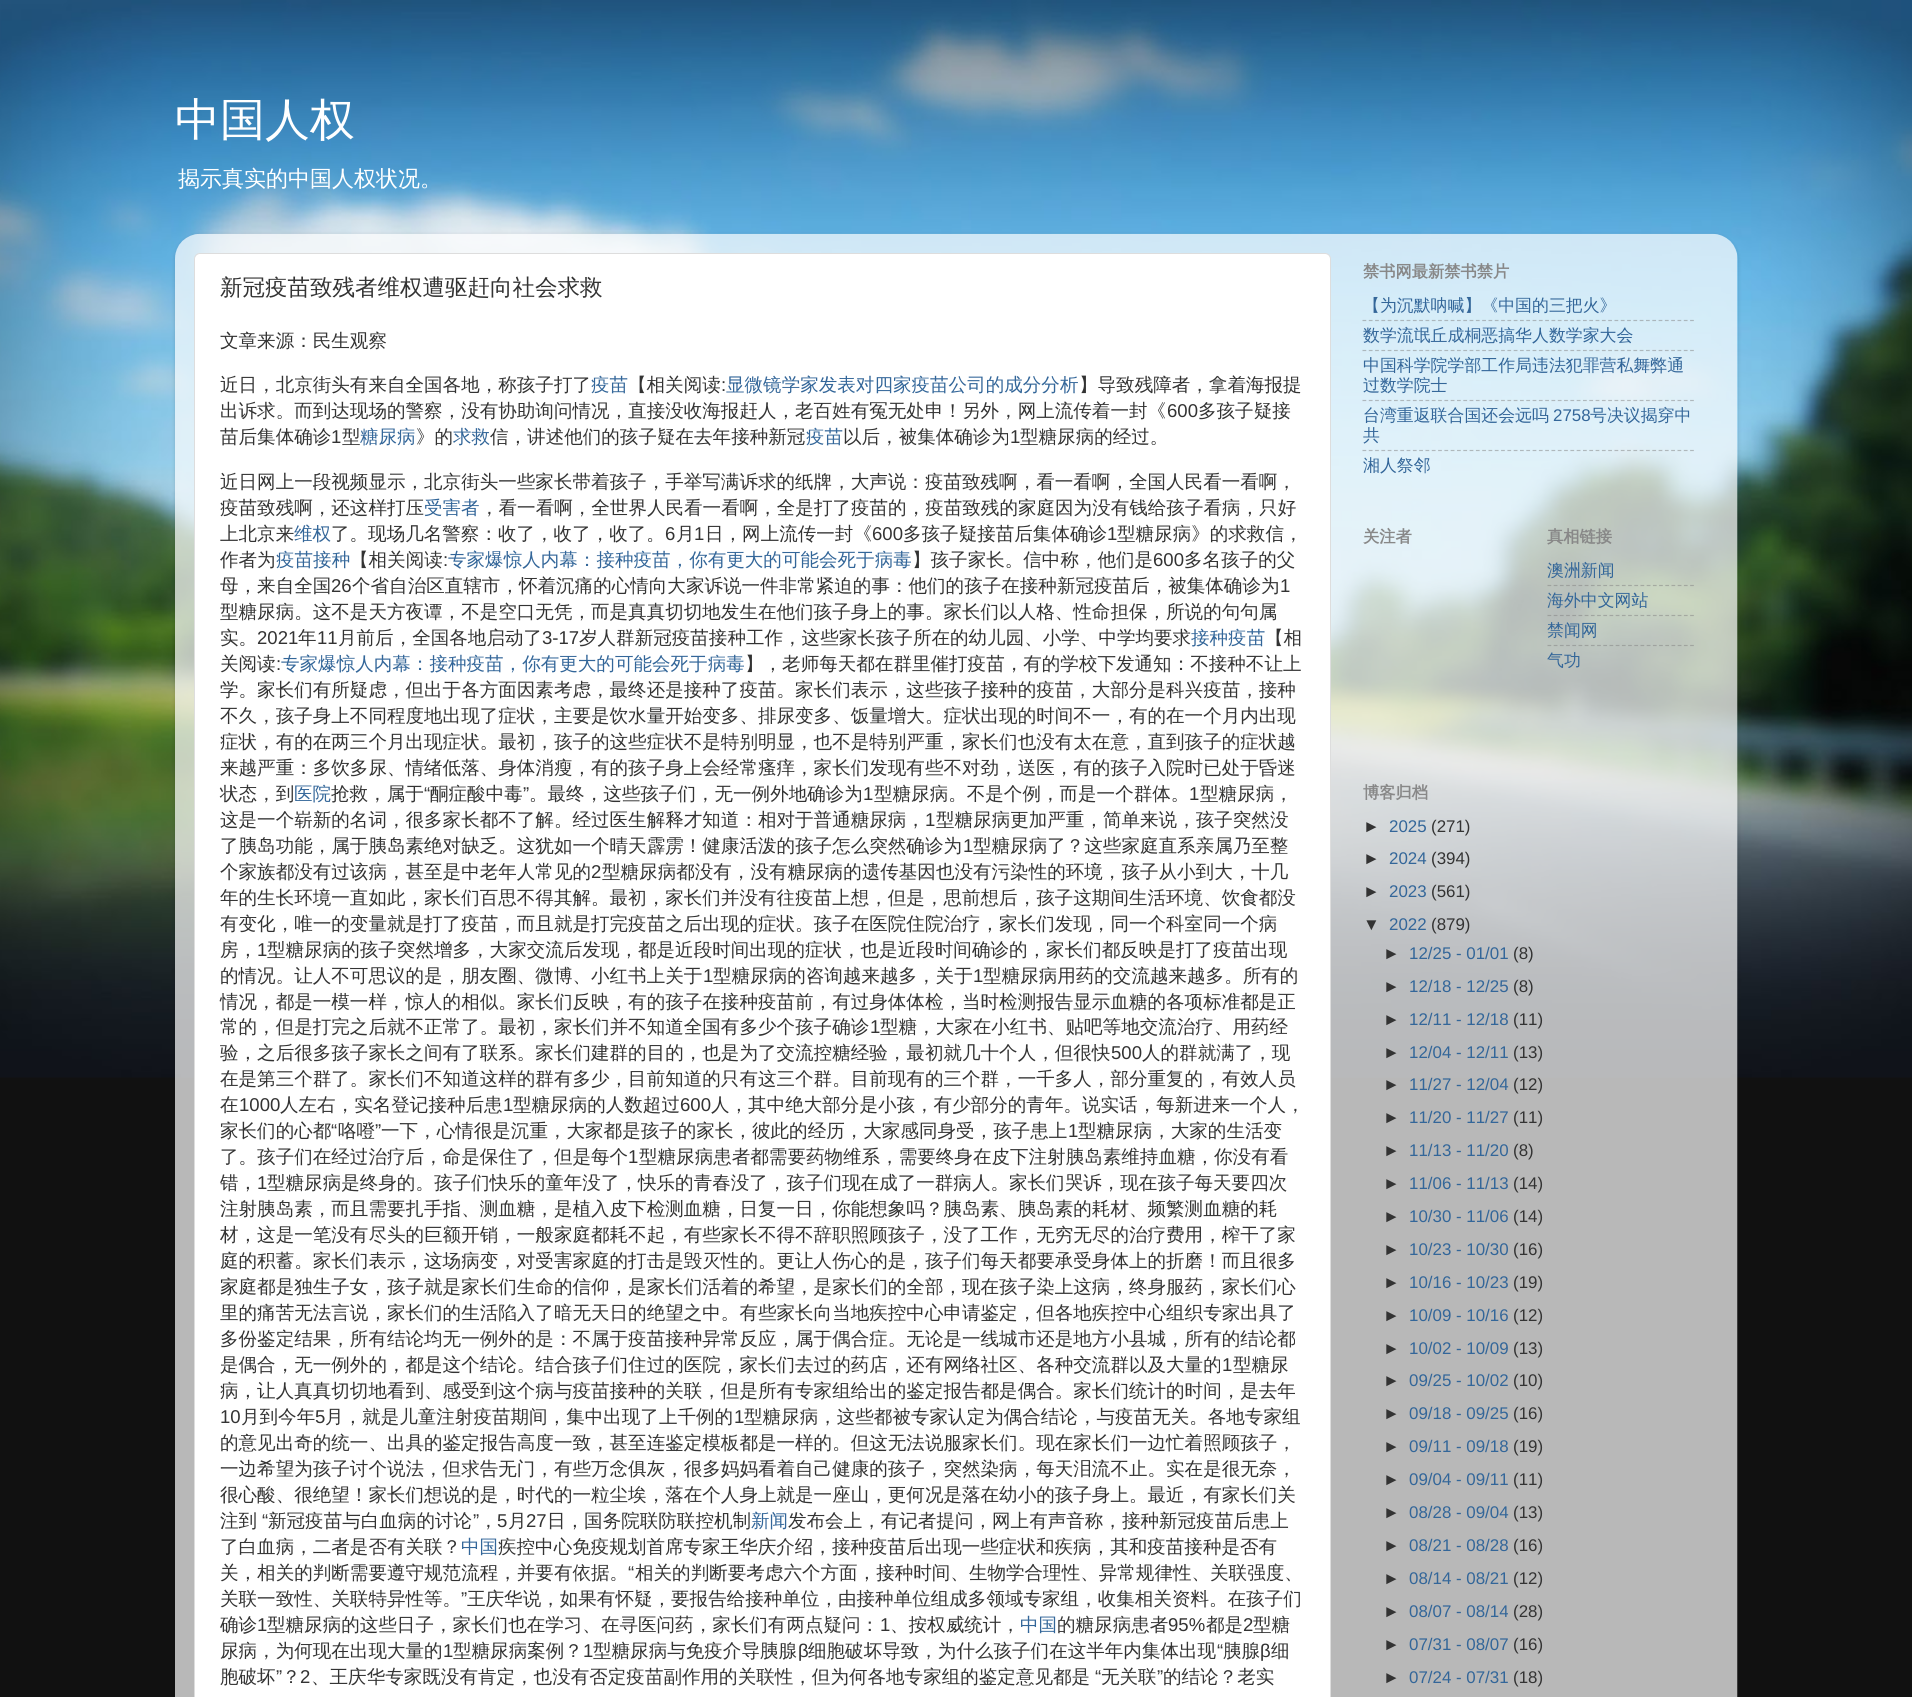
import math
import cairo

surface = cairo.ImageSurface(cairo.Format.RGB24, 1912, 1697)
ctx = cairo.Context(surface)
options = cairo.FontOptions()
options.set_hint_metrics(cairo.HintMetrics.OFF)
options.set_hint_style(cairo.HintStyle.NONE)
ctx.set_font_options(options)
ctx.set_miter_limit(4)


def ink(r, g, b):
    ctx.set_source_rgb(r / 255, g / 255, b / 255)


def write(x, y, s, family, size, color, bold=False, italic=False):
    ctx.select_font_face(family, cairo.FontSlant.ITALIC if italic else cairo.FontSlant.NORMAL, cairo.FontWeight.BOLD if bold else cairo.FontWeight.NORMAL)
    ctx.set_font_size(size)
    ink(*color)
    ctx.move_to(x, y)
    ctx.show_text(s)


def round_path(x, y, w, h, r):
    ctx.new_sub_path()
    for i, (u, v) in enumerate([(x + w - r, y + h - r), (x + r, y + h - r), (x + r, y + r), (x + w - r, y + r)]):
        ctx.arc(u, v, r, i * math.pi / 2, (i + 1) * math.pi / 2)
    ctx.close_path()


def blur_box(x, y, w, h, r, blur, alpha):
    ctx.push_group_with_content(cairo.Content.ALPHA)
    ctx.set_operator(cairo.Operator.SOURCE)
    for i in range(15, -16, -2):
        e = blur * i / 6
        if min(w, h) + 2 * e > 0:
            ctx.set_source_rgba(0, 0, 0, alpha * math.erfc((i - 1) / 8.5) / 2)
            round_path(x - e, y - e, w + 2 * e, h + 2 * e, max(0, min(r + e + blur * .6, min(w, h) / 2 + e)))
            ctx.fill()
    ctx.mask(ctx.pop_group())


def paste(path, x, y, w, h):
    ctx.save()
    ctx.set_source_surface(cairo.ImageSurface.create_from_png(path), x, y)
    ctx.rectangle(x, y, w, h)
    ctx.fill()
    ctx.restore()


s1 = dict(family="WenQuanYi Zen Hei Medium", size=45, color=(255, 255, 255))
s2 = dict(family="WenQuanYi Zen Hei Medium", size=22, color=(255, 255, 255))
s3 = dict(family="WenQuanYi Zen Hei Medium", size=22.5, color=(51, 51, 51))
s4 = dict(family="WenQuanYi Zen Hei Medium", size=18.55, color=(51, 51, 51))
s5 = dict(family="WenQuanYi Zen Hei Medium", size=18.55, color=(51, 102, 153))
s6 = dict(family="Liberation Sans", size=18.55, color=(51, 51, 51))
s7 = dict(family="WenQuanYi Zen Hei", size=16.25, color=(136, 136, 136), bold=True)
s8 = dict(family="WenQuanYi Zen Hei Medium", size=16.9, color=(51, 102, 153))
s9 = dict(family="Liberation Sans", size=16.9, color=(51, 102, 153))
s10 = dict(family="Liberation Sans", size=16.9, color=(51, 51, 51))

ink(17, 17, 17)
ctx.paint()
paste("pic1.png", 0, 0, 1912, 1078)
write(175, 135, "中国人权", **s1)
write(178, 186, "揭示真实的中国人权状况。", **s2)
ctx.save()
ctx.set_fill_rule(cairo.FillRule.EVEN_ODD)
ctx.new_path()
ctx.move_to(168, 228)
ctx.line_to(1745, 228)
ctx.line_to(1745, 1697)
ctx.line_to(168, 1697)
ctx.close_path()
ctx.move_to(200, 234)
ctx.line_to(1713, 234)
ctx.curve_to(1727, 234, 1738, 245, 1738, 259)
ctx.line_to(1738, 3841)
ctx.line_to(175, 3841)
ctx.line_to(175, 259)
ctx.curve_to(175, 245, 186, 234, 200, 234)
ctx.close_path()
ctx.clip()
ink(0, 0, 0)
blur_box(175, 235, 1563, 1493, 25, 2, 0.15)
ctx.restore()
paste("pic2.png", 175, 233, 1563, 1464)
round_path(194.5, 253.5, 1136, 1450, 5.5)
ctx.fill_preserve()
ink(221, 221, 221)
ctx.set_line_width(1)
ctx.stroke()
write(220, 295, "新冠疫苗致残者维权遭驱赶向社会求救", **s3)
write(220, 347, "文章来源：民生观察", **s4)
write(220, 391, "近日，北京街头有来自全国各地，称孩子打了", **s4)
write(591, 391, "疫苗", **s5)
write(628, 391, "【相关阅读", **s4)
write(721, 391, ":", **s6)
write(726, 391, "显微镜学家发表对四家疫苗公司的成分分析", **s5)
write(1079, 391, "】导致残障者，拿着海报提", **s4)
write(220, 417, "出诉求。而到达现场的警察，没有协助询问情况，直接没收海报赶人，老百姓有冤无处申！另外，网上流传着一封《", **s4)
write(1167, 417, "600", **s6)
write(1198, 417, "多孩子疑接", **s4)
write(220, 443, "苗后集体确诊", **s4)
write(331, 443, "1", **s6)
write(342, 443, "型", **s4)
write(360, 443, "糖尿病", **s5)
write(416, 443, "》的", **s4)
write(453, 443, "求救", **s5)
write(490, 443, "信，讲述他们的孩子疑在去年接种新冠", **s4)
write(806, 443, "疫苗", **s5)
write(843, 443, "以后，被集体确诊为", **s4)
write(1010, 443, "1", **s6)
write(1020, 443, "型糖尿病的经过。", **s4)
write(220, 488, "近日网上一段视频显示，北京街头一些家长带着孩子，手举写满诉求的纸牌，大声说：疫苗致残啊，看一看啊，全国人民看一看啊，", **s4)
write(220, 514, "疫苗致残啊，还这样打压", **s4)
write(424, 514, "受害者", **s5)
write(480, 514, "，看一看啊，全世界人民看一看啊，全是打了疫苗的，疫苗致残的家庭因为没有钱给孩子看病，只好", **s4)
write(220, 540, "上北京来", **s4)
write(294, 540, "维权", **s5)
write(331, 540, "了。现场几名警察：收了，收了，收了。", **s4)
write(665, 540, "6", **s6)
write(676, 540, "月", **s4)
write(694, 540, "1", **s6)
write(705, 540, "日，网上流传一封《", **s4)
write(872, 540, "600", **s6)
write(903, 540, "多孩子疑接苗后集体确诊", **s4)
write(1107, 540, "1", **s6)
write(1117, 540, "型糖尿病》的求救信，", **s4)
write(220, 566, "作者为", **s4)
write(276, 566, "疫苗接种", **s5)
write(350, 566, "【相关阅读", **s4)
write(443, 566, ":", **s6)
write(448, 566, "专家爆惊人内幕：接种疫苗，你有更大的可能会死于病毒", **s5)
write(912, 566, "】孩子家长。信中称，他们是", **s4)
write(1153, 566, "600", **s6)
write(1184, 566, "多名孩子的父", **s4)
write(220, 592, "母，来自全国", **s4)
write(331, 592, "26", **s6)
write(352, 592, "个省自治区直辖市，怀着沉痛的心情向大家诉说一件非常紧迫的事：他们的孩子在接种新冠疫苗后，被集体确诊为", **s4)
write(1280, 592, "1", **s6)
write(220, 618, "型糖尿病。这不是天方夜谭，不是空口无凭，而是真真切切地发生在他们孩子身上的事。家长们以人格、性命担保，所说的句句属", **s4)
write(220, 644, "实。", **s4)
write(257, 644, "2021", **s6)
write(298, 644, "年", **s4)
write(317, 644, "11", **s6)
write(338, 644, "月前后，全国各地启动了", **s4)
write(542, 644, "3-17", **s6)
write(579, 644, "岁人群新冠疫苗接种工作，这些家长孩子所在的幼儿园、小学、中学均要求", **s4)
write(1191, 644, "接种疫苗", **s5)
write(1265, 644, "【相", **s4)
write(220, 670, "关阅读", **s4)
write(276, 670, ":", **s6)
write(281, 670, "专家爆惊人内幕：接种疫苗，你有更大的可能会死于病毒", **s5)
write(745, 670, "】，老师每天都在群里催打疫苗，有的学校下发通知：不接种不让上", **s4)
write(220, 696, "学。家长们有所疑虑，但出于各方面因素考虑，最终还是接种了疫苗。家长们表示，这些孩子接种的疫苗，大部分是科兴疫苗，接种", **s4)
write(220, 722, "不久，孩子身上不同程度地出现了症状，主要是饮水量开始变多、排尿变多、饭量增大。症状出现的时间不一，有的在一个月内出现", **s4)
write(220, 748, "症状，有的在两三个月出现症状。最初，孩子的这些症状不是特别明显，也不是特别严重，家长们也没有太在意，直到孩子的症状越", **s4)
write(220, 774, "来越严重：多饮多尿、情绪低落、身体消瘦，有的孩子身上会经常瘙痒，家长们发现有些不对劲，送医，有的孩子入院时已处于昏迷", **s4)
write(220, 800, "状态，到", **s4)
write(294, 800, "医院", **s5)
write(331, 800, "抢救，属于", **s4)
write(424, 800, "“", **s6)
write(430, 800, "酮症酸中毒", **s4)
write(523, 800, "”", **s6)
write(529, 800, "。最终，这些孩子们，无一例外地确诊为", **s4)
write(863, 800, "1", **s6)
write(874, 800, "型糖尿病。不是个例，而是一个群体。", **s4)
write(1189, 800, "1", **s6)
write(1200, 800, "型糖尿病，", **s4)
write(220, 826, "这是一个崭新的名词，很多家长都不了解。经过医生解释才知道：相对于普通糖尿病，", **s4)
write(925, 826, "1", **s6)
write(936, 826, "型糖尿病更加严重，简单来说，孩子突然没", **s4)
write(220, 852, "了胰岛功能，属于胰岛素绝对缺乏。这犹如一个晴天霹雳！健康活泼的孩子怎么突然确诊为", **s4)
write(963, 852, "1", **s6)
write(973, 852, "型糖尿病了？这些家庭直系亲属乃至整", **s4)
write(220, 878, "个家族都没有过该病，甚至是中老年人常见的", **s4)
write(591, 878, "2", **s6)
write(602, 878, "型糖尿病都没有，没有糖尿病的遗传基因也没有污染性的环境，孩子从小到大，十几", **s4)
write(220, 904, "年的生长环境一直如此，家长们百思不得其解。最初，家长们并没有往疫苗上想，但是，思前想后，孩子这期间生活环境、饮食都没", **s4)
write(220, 930, "有变化，唯一的变量就是打了疫苗，而且就是打完疫苗之后出现的症状。孩子在医院住院治疗，家长们发现，同一个科室同一个病", **s4)
write(220, 956, "房，", **s4)
write(257, 956, "1", **s6)
write(267, 956, "型糖尿病的孩子突然增多，大家交流后发现，都是近段时间出现的症状，也是近段时间确诊的，家长们都反映是打了疫苗出现", **s4)
write(220, 982, "的情况。让人不可思议的是，朋友圈、微博、小红书上关于", **s4)
write(703, 982, "1", **s6)
write(713, 982, "型糖尿病的咨询越来越多，关于", **s4)
write(973, 982, "1", **s6)
write(983, 982, "型糖尿病用药的交流越来越多。所有的", **s4)
write(220, 1008, "情况，都是一模一样，惊人的相似。家长们反映，有的孩子在接种疫苗前，有过身体体检，当时检测报告显示血糖的各项标准都是正", **s4)
write(220, 1033, "常的，但是打完之后就不正常了。最初，家长们并不知道全国有多少个孩子确诊", **s4)
write(870, 1033, "1", **s6)
write(880, 1033, "型糖，大家在小红书、贴吧等地交流治疗、用药经", **s4)
write(220, 1059, "验，之后很多孩子家长之间有了联系。家长们建群的目的，也是为了交流控糖经验，最初就几十个人，但很快", **s4)
write(1111, 1059, "500", **s6)
write(1142, 1059, "人的群就满了，现", **s4)
write(220, 1085, "在是第三个群了。家长们不知道这样的群有多少，目前知道的只有这三个群。目前现有的三个群，一千多人，部分重复的，有效人员", **s4)
write(220, 1111, "在", **s4)
write(239, 1111, "1000", **s6)
write(280, 1111, "人左右，实名登记接种后患", **s4)
write(503, 1111, "1", **s6)
write(513, 1111, "型糖尿病的人数超过", **s4)
write(680, 1111, "600", **s6)
write(711, 1111, "人，其中绝大部分是小孩，有少部分的青年。说实话，每新进来一个人，", **s4)
write(220, 1137, "家长们的心都", **s4)
write(331, 1137, "“", **s6)
write(338, 1137, "咯噔", **s4)
write(375, 1137, "”", **s6)
write(381, 1137, "一下，心情很是沉重，大家都是孩子的家长，彼此的经历，大家感同身受，孩子患上", **s4)
write(1068, 1137, "1", **s6)
write(1078, 1137, "型糖尿病，大家的生活变", **s4)
write(220, 1163, "了。孩子们在经过治疗后，命是保住了，但是每个", **s4)
write(628, 1163, "1", **s6)
write(639, 1163, "型糖尿病患者都需要药物维系，需要终身在皮下注射胰岛素维持血糖，你没有看", **s4)
write(220, 1189, "错，", **s4)
write(257, 1189, "1", **s6)
write(267, 1189, "型糖尿病是终身的。孩子们快乐的童年没了，快乐的青春没了，孩子们现在成了一群病人。家长们哭诉，现在孩子每天要四次", **s4)
write(220, 1215, "注射胰岛素，而且需要扎手指、测血糖，是植入皮下检测血糖，日复一日，你能想象吗？胰岛素、胰岛素的耗材、频繁测血糖的耗", **s4)
write(220, 1241, "材，这是一笔没有尽头的巨额开销，一般家庭都耗不起，有些家长不得不辞职照顾孩子，没了工作，无穷无尽的治疗费用，榨干了家", **s4)
write(220, 1267, "庭的积蓄。家长们表示，这场病变，对受害家庭的打击是毁灭性的。更让人伤心的是，孩子们每天都要承受身体上的折磨！而且很多", **s4)
write(220, 1293, "家庭都是独生子女，孩子就是家长们生命的信仰，是家长们活着的希望，是家长们的全部，现在孩子染上这病，终身服药，家长们心", **s4)
write(220, 1319, "里的痛苦无法言说，家长们的生活陷入了暗无天日的绝望之中。有些家长向当地疾控中心申请鉴定，但各地疾控中心组织专家出具了", **s4)
write(220, 1345, "多份鉴定结果，所有结论均无一例外的是：不属于疫苗接种异常反应，属于偶合症。无论是一线城市还是地方小县城，所有的结论都", **s4)
write(220, 1371, "是偶合，无一例外的，都是这个结论。结合孩子们住过的医院，家长们去过的药店，还有网络社区、各种交流群以及大量的", **s4)
write(1222, 1371, "1", **s6)
write(1233, 1371, "型糖尿", **s4)
write(220, 1397, "病，让人真真切切地看到、感受到这个病与疫苗接种的关联，但是所有专家组给出的鉴定报告都是偶合。家长们统计的时间，是去年", **s4)
write(220, 1423, "10", **s6)
write(241, 1423, "月到今年", **s4)
write(315, 1423, "5", **s6)
write(325, 1423, "月，就是儿童注射疫苗期间，集中出现了上千例的", **s4)
write(734, 1423, "1", **s6)
write(744, 1423, "型糖尿病，这些都被专家认定为偶合结论，与疫苗无关。各地专家组", **s4)
write(220, 1449, "的意见出奇的统一、出具的鉴定报告高度一致，甚至连鉴定模板都是一样的。但这无法说服家长们。现在家长们一边忙着照顾孩子，", **s4)
write(220, 1475, "一边希望为孩子讨个说法，但求告无门，有些万念俱灰，很多妈妈看着自己健康的孩子，突然染病，每天泪流不止。实在是很无奈，", **s4)
write(220, 1501, "很心酸、很绝望！家长们想说的是，时代的一粒尘埃，落在个人身上就是一座山，更何况是落在幼小的孩子身上。最近，有家长们关", **s4)
write(220, 1527, "注到", **s4)
write(262, 1527, "“", **s6)
write(268, 1527, "新冠疫苗与白血病的讨论", **s4)
write(473, 1527, "”", **s6)
write(479, 1527, "，", **s4)
write(497, 1527, "5", **s6)
write(508, 1527, "月", **s4)
write(526, 1527, "27", **s6)
write(547, 1527, "日，国务院联防联控机制", **s4)
write(751, 1527, "新闻", **s5)
write(788, 1527, "发布会上，有记者提问，网上有声音称，接种新冠疫苗后患上", **s4)
write(220, 1553, "了白血病，二者是否有关联？", **s4)
write(461, 1553, "中国", **s5)
write(498, 1553, "疾控中心免疫规划首席专家王华庆介绍，接种疫苗后出现一些症状和疾病，其和疫苗接种是否有", **s4)
write(220, 1579, "关，相关的判断需要遵守规范流程，并要有依据。", **s4)
write(628, 1579, "“", **s6)
write(635, 1579, "相关的判断要考虑六个方面，接种时间、生物学合理性、异常规律性、关联强度、", **s4)
write(220, 1605, "关联一致性、关联特异性等。", **s4)
write(461, 1605, "”", **s6)
write(467, 1605, "王庆华说，如果有怀疑，要报告给接种单位，由接种单位组成多领域专家组，收集相关资料。在孩子们", **s4)
write(220, 1631, "确诊", **s4)
write(257, 1631, "1", **s6)
write(267, 1631, "型糖尿病的这些日子，家长们也在学习、在寻医问药，家长们有两点疑问：", **s4)
write(880, 1631, "1", **s6)
write(890, 1631, "、按权威统计，", **s4)
write(1020, 1631, "中国", **s5)
write(1057, 1631, "的糖尿病患者", **s4)
write(1168, 1631, "95%", **s6)
write(1206, 1631, "都是", **s4)
write(1243, 1631, "2", **s6)
write(1253, 1631, "型糖", **s4)
write(220, 1657, "尿病，为何现在出现大量的", **s4)
write(443, 1657, "1", **s6)
write(453, 1657, "型糖尿病案例？", **s4)
write(583, 1657, "1", **s6)
write(593, 1657, "型糖尿病与免疫介导胰腺", **s4)
write(798, 1657, "β", **s6)
write(808, 1657, "细胞破坏导致，为什么孩子们在这半年内集体出现", **s4)
write(1217, 1657, "“", **s6)
write(1223, 1657, "胰腺", **s4)
write(1260, 1657, "β", **s6)
write(1271, 1657, "细", **s4)
write(220, 1683, "胞破坏", **s4)
write(276, 1683, "”", **s6)
write(282, 1683, "？", **s4)
write(300, 1683, "2", **s6)
write(311, 1683, "、王庆华专家既没有肯定，也没有否定疫苗副作用的关联性，但为何各地专家组的鉴定意见都是", **s4)
write(1095, 1683, "“", **s6)
write(1101, 1683, "无关联", **s4)
write(1157, 1683, "”", **s6)
write(1163, 1683, "的结论？老实", **s4)
write(1363, 277, "禁书网最新禁书禁片", **s7)
write(1363, 311, "【为沉默呐喊】《中国的三把火》", **s8)
ctx.new_path()
ctx.move_to(1362.5, 320.5)
ctx.line_to(1694, 320.5)
ink(171, 182, 188)
ctx.set_line_width(1.2)
ctx.set_dash([3.75, 2.55])
ctx.stroke()
write(1363, 341, "数学流氓丘成桐恶搞华人数学家大会", **s8)
ctx.new_path()
ctx.move_to(1362.5, 350.5)
ctx.line_to(1694, 350.5)
ctx.set_source_rgba(0.502, 0.502, 0.502, 0.5)
ctx.stroke()
write(1363, 371, "中国科学院学部工作局违法犯罪营私舞弊通", **s8)
write(1363, 391, "过数学院士", **s8)
ctx.new_path()
ctx.move_to(1362.5, 400.5)
ctx.line_to(1694, 400.5)
ctx.set_source_rgba(0.502, 0.502, 0.502, 0.5)
ctx.stroke()
write(1363, 421, "台湾重返联合国还会远吗", **s8)
write(1553, 421, "2758", **s9)
write(1590, 421, "号决议揭穿中", **s8)
write(1363, 441, "共", **s8)
ctx.new_path()
ctx.move_to(1362.5, 450.5)
ctx.line_to(1694, 450.5)
ctx.set_source_rgba(0.502, 0.502, 0.502, 0.5)
ctx.stroke()
write(1363, 471, "湘人祭邻", **s8)
write(1363, 542, "关注者", **s7)
write(1547, 542, "真相链接", **s7)
write(1547, 576, "澳洲新闻", **s8)
ctx.new_path()
ctx.move_to(1547.5, 585.5)
ctx.line_to(1694, 585.5)
ctx.set_source_rgba(0.502, 0.502, 0.502, 0.5)
ctx.set_dash([3.75, 2.45])
ctx.stroke()
write(1547, 606, "海外中文网站", **s8)
ctx.new_path()
ctx.move_to(1547.5, 615.5)
ctx.line_to(1694, 615.5)
ctx.set_source_rgba(0.502, 0.502, 0.502, 0.5)
ctx.stroke()
write(1547, 636, "禁闻网", **s8)
ctx.new_path()
ctx.move_to(1547.5, 645.5)
ctx.line_to(1694, 645.5)
ctx.set_source_rgba(0.502, 0.502, 0.502, 0.5)
ctx.stroke()
write(1547, 666, "气功", **s8)
write(1363, 798, "博客归档", **s7)
write(1363, 832, "►", **s10)
write(1389, 832, "2025", **s9)
write(1431, 832, "(271)", **s10)
write(1363, 864, "►", **s10)
write(1389, 864, "2024", **s9)
write(1431, 864, "(394)", **s10)
write(1363, 897, "►", **s10)
write(1389, 897, "2023", **s9)
write(1431, 897, "(561)", **s10)
write(1363, 930, "▼", **s10)
write(1389, 930, "2022", **s9)
write(1431, 930, "(879)", **s10)
write(1383, 959, "►", **s10)
write(1409, 959, "12/25 - 01/01", **s9)
write(1513, 959, "(8)", **s10)
write(1383, 992, "►", **s10)
write(1409, 992, "12/18 - 12/25", **s9)
write(1513, 992, "(8)", **s10)
write(1383, 1025, "►", **s10)
write(1409, 1025, "12/11 - 12/18", **s9)
write(1513, 1025, "(11)", **s10)
write(1383, 1058, "►", **s10)
write(1409, 1058, "12/04 - 12/11", **s9)
write(1513, 1058, "(13)", **s10)
write(1383, 1090, "►", **s10)
write(1409, 1090, "11/27 - 12/04", **s9)
write(1513, 1090, "(12)", **s10)
write(1383, 1123, "►", **s10)
write(1409, 1123, "11/20 - 11/27", **s9)
write(1513, 1123, "(11)", **s10)
write(1383, 1156, "►", **s10)
write(1409, 1156, "11/13 - 11/20", **s9)
write(1513, 1156, "(8)", **s10)
write(1383, 1189, "►", **s10)
write(1409, 1189, "11/06 - 11/13", **s9)
write(1513, 1189, "(14)", **s10)
write(1383, 1222, "►", **s10)
write(1409, 1222, "10/30 - 11/06", **s9)
write(1513, 1222, "(14)", **s10)
write(1383, 1255, "►", **s10)
write(1409, 1255, "10/23 - 10/30", **s9)
write(1513, 1255, "(16)", **s10)
write(1383, 1288, "►", **s10)
write(1409, 1288, "10/16 - 10/23", **s9)
write(1513, 1288, "(19)", **s10)
write(1383, 1321, "►", **s10)
write(1409, 1321, "10/09 - 10/16", **s9)
write(1513, 1321, "(12)", **s10)
write(1383, 1354, "►", **s10)
write(1409, 1354, "10/02 - 10/09", **s9)
write(1513, 1354, "(13)", **s10)
write(1383, 1386, "►", **s10)
write(1409, 1386, "09/25 - 10/02", **s9)
write(1513, 1386, "(10)", **s10)
write(1383, 1419, "►", **s10)
write(1409, 1419, "09/18 - 09/25", **s9)
write(1513, 1419, "(16)", **s10)
write(1383, 1452, "►", **s10)
write(1409, 1452, "09/11 - 09/18", **s9)
write(1513, 1452, "(19)", **s10)
write(1383, 1485, "►", **s10)
write(1409, 1485, "09/04 - 09/11", **s9)
write(1513, 1485, "(11)", **s10)
write(1383, 1518, "►", **s10)
write(1409, 1518, "08/28 - 09/04", **s9)
write(1513, 1518, "(13)", **s10)
write(1383, 1551, "►", **s10)
write(1409, 1551, "08/21 - 08/28", **s9)
write(1513, 1551, "(16)", **s10)
write(1383, 1584, "►", **s10)
write(1409, 1584, "08/14 - 08/21", **s9)
write(1513, 1584, "(12)", **s10)
write(1383, 1617, "►", **s10)
write(1409, 1617, "08/07 - 08/14", **s9)
write(1513, 1617, "(28)", **s10)
write(1383, 1650, "►", **s10)
write(1409, 1650, "07/31 - 08/07", **s9)
write(1513, 1650, "(16)", **s10)
write(1383, 1683, "►", **s10)
write(1409, 1683, "07/24 - 07/31", **s9)
write(1513, 1683, "(18)", **s10)
surface.write_to_png("screenshot.png")
